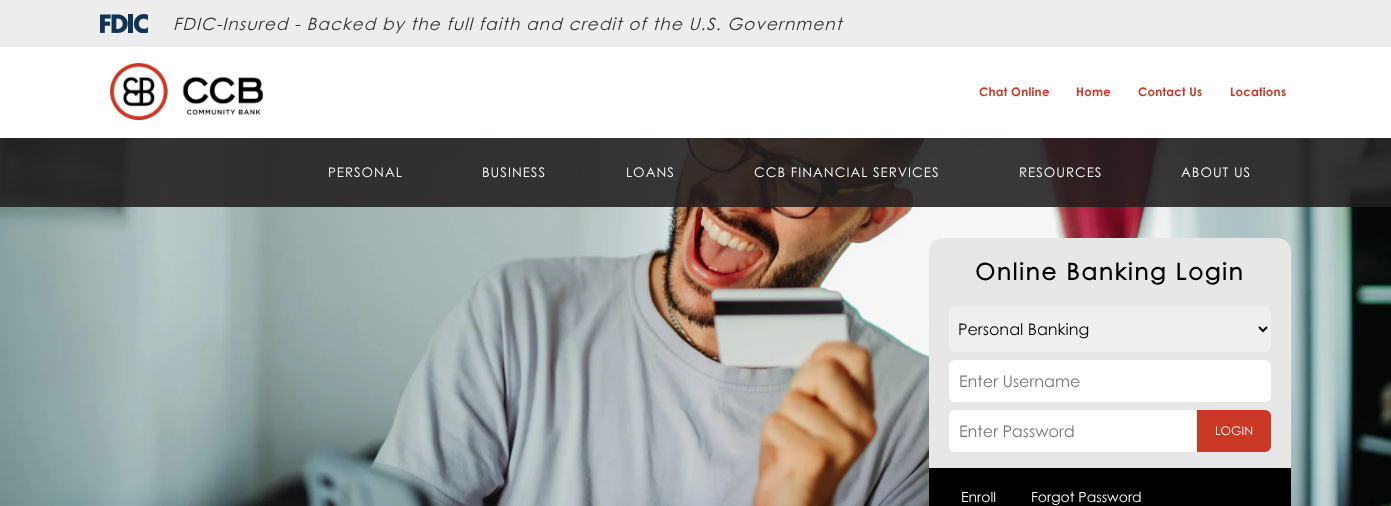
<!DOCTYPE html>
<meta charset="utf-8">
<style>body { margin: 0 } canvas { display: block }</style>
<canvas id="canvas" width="1391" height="506"></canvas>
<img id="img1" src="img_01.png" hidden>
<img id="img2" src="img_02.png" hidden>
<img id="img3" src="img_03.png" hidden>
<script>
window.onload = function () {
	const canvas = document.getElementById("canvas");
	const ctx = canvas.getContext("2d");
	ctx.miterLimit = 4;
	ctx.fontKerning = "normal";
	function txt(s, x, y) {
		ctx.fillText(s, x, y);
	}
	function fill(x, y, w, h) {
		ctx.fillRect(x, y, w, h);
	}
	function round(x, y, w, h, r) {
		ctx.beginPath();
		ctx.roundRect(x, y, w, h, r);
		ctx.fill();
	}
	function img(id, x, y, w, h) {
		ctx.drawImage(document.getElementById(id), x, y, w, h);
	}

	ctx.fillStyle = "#FFFFFF";
	fill(0, 0, 1391, 506);
	ctx.fillStyle = "#EDEDED";
	fill(0, 0, 1391, 47);
	img("img1", 100, 14, 48, 19);
	img("img2", 110, 63, 153, 58);
	img("img3", 0, 138, 1391, 368);
	ctx.fillStyle = "rgba(35, 31, 32, 0.89)";
	fill(0, 138, 1391, 69);
	ctx.fillStyle = "#E7E7E7";
	round(929, 238, 362, 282, 14);
	ctx.fillStyle = "#EFEFEF";
	round(949, 306, 322, 46, 6);
	ctx.beginPath();
	ctx.moveTo(1259, 327);
	ctx.lineTo(1263, 331);
	ctx.lineTo(1267, 327);
	ctx.strokeStyle = "#000000";
	ctx.lineWidth = 2;
	ctx.stroke();
	ctx.fillStyle = "#FFFFFF";
	round(949, 360, 322, 42, 6);
	ctx.beginPath();
	ctx.roundRect(949, 410, 248, 42, [6, 0, 0, 6]);
	ctx.fill();
	ctx.fillStyle = "#CB3825";
	ctx.beginPath();
	ctx.roundRect(1197, 410, 74, 42, [0, 6, 6, 0]);
	ctx.fill();
	ctx.fillStyle = "#000000";
	fill(929, 468, 362, 38);
	ctx.letterSpacing = "1.02px";
	ctx.font = "italic 17px Century Gothic";
	ctx.fillStyle = "#333333";
	txt("FDIC-Insured - Backed by the full faith and credit of the U.S. Government", 173, 30);
	ctx.letterSpacing = "0.25px";
	ctx.font = "bold 11.75px 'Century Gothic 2'";
	ctx.fillStyle = "#CB3825";
	txt("Chat Online", 979, 96);
	txt("Home", 1076, 96);
	txt("Contact Us", 1138, 96);
	txt("Locations", 1230, 96);
	ctx.letterSpacing = "1px";
	ctx.font = "13.25px Century Gothic";
	ctx.fillStyle = "#FFFFFF";
	txt("PERSONAL", 328, 177);
	txt("BUSINESS", 482, 177);
	txt("LOANS", 626, 177);
	txt("CCB FINANCIAL SERVICES", 754, 177);
	txt("RESOURCES", 1019, 177);
	txt("ABOUT US", 1181, 177);
	ctx.letterSpacing = "1.8px";
	ctx.font = "bold 23px Century Gothic";
	ctx.fillStyle = "#000000";
	txt("Online Banking Login", 975, 280);
	ctx.letterSpacing = "0px";
	ctx.font = "16px Century Gothic";
	txt("Personal Banking", 958, 335);
	ctx.fillStyle = "#757575";
	txt("Enter Username", 959, 387);
	txt("Enter Password", 959, 437);
	ctx.font = "12px Century Gothic";
	ctx.fillStyle = "#FFFFFF";
	txt("LOGIN", 1215, 435);
	ctx.font = "14px Century Gothic";
	txt("Enroll", 961, 502);
	txt("Forgot Password", 1031, 502);
};
</script>
